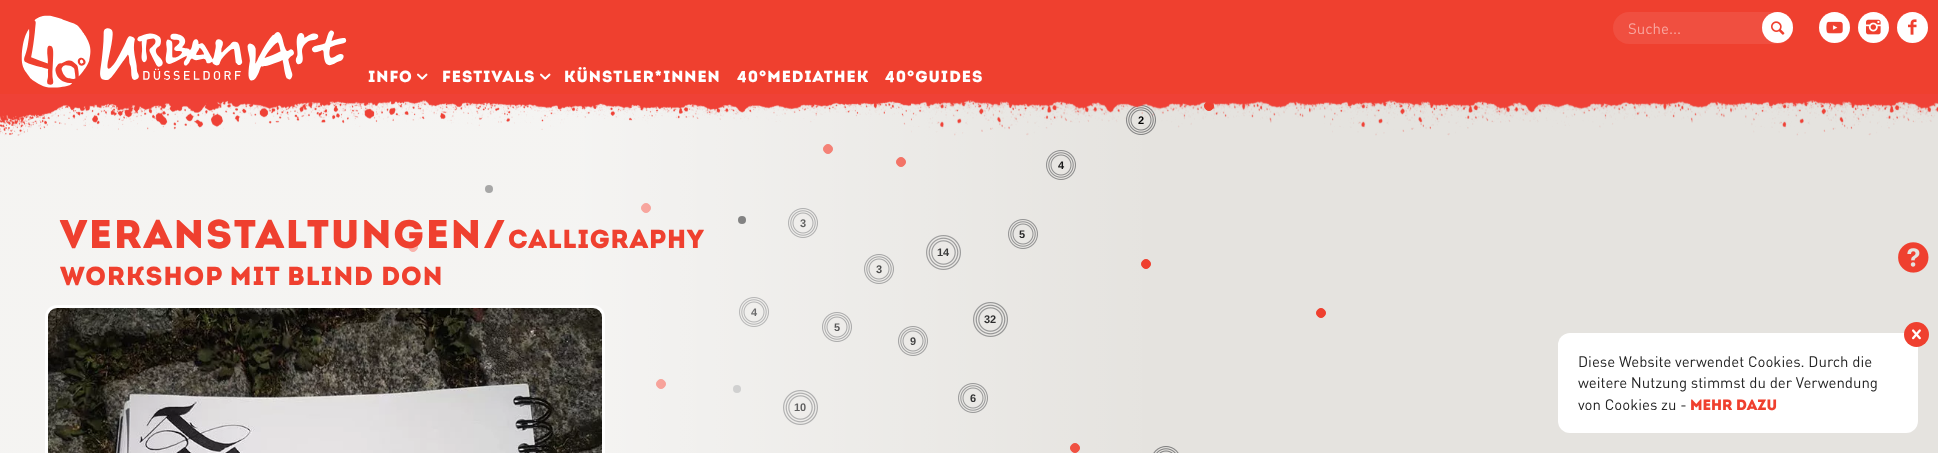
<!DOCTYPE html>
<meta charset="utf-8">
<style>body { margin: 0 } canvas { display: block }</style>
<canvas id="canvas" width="1938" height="453"></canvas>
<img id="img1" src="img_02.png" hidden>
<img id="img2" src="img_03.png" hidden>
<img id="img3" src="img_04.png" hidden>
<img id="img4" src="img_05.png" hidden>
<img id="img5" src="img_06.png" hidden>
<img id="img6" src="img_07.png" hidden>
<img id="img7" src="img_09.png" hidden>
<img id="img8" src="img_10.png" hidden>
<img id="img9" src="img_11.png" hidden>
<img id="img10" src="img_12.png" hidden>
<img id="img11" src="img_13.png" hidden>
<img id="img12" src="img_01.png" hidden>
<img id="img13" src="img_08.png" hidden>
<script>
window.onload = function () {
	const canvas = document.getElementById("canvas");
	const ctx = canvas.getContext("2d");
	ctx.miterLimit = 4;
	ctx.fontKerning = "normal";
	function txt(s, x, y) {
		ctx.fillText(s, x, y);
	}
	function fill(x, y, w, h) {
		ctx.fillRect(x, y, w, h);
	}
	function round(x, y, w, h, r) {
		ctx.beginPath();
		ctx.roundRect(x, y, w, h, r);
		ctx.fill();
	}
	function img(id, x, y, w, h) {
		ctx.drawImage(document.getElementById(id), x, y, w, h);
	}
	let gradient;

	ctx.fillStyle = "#E5E3DF";
	fill(0, 0, 1938, 453);
	ctx.fillStyle = "#EF402F";
	fill(0, 0, 1938, 94);
	img("img1", 21, 15, 326, 73);
	ctx.fillStyle = "#F04F40";
	round(1613, 12, 180, 32, 16);
	ctx.fillStyle = "#FFFFFF";
	ctx.beginPath();
	ctx.arc(1777.5, 27.5, 15.5, 0, Math.PI * 2);
	ctx.fill();
	img("img2", 1771, 21, 14, 14);
	ctx.beginPath();
	ctx.arc(1834.5, 27.5, 15.5, 0, Math.PI * 2);
	ctx.fill();
	img("img3", 1826, 21, 17, 13);
	ctx.beginPath();
	ctx.arc(1873.5, 27.5, 15.5, 0, Math.PI * 2);
	ctx.fill();
	img("img4", 1866, 19, 15, 16);
	ctx.beginPath();
	ctx.arc(1912.5, 27.5, 15.5, 0, Math.PI * 2);
	ctx.fill();
	img("img5", 1908, 19, 9, 16);
	img("img6", 417, 73, 11, 7);
	img("img6", 540, 73, 11, 7);
	ctx.fillStyle = "#EF402F";
	ctx.beginPath();
	ctx.arc(1209, 106, 4.5, 0, Math.PI * 2);
	ctx.fill();
	ctx.strokeStyle = "#EF402F";
	ctx.stroke();
	ctx.beginPath();
	ctx.arc(828, 149, 4.5, 0, Math.PI * 2);
	ctx.fill();
	ctx.stroke();
	ctx.beginPath();
	ctx.arc(901, 162, 4.5, 0, Math.PI * 2);
	ctx.fill();
	ctx.stroke();
	ctx.fillStyle = "#232323";
	ctx.beginPath();
	ctx.arc(489, 189, 4, 0, Math.PI * 2);
	ctx.fill();
	ctx.fillStyle = "#EF402F";
	ctx.beginPath();
	ctx.arc(646, 208, 4.5, 0, Math.PI * 2);
	ctx.fill();
	ctx.stroke();
	ctx.fillStyle = "#232323";
	ctx.beginPath();
	ctx.arc(742, 220, 4, 0, Math.PI * 2);
	ctx.fill();
	ctx.fillStyle = "#EF402F";
	ctx.beginPath();
	ctx.arc(413, 247, 4.5, 0, Math.PI * 2);
	ctx.fill();
	ctx.stroke();
	ctx.beginPath();
	ctx.arc(1146, 264, 4.5, 0, Math.PI * 2);
	ctx.fill();
	ctx.stroke();
	ctx.beginPath();
	ctx.arc(1321, 313, 4.5, 0, Math.PI * 2);
	ctx.fill();
	ctx.stroke();
	ctx.beginPath();
	ctx.arc(661, 384, 4.5, 0, Math.PI * 2);
	ctx.fill();
	ctx.stroke();
	ctx.fillStyle = "#ABABAB";
	ctx.beginPath();
	ctx.arc(737, 389, 4, 0, Math.PI * 2);
	ctx.fill();
	ctx.fillStyle = "#EF402F";
	ctx.beginPath();
	ctx.arc(1075, 448, 4.5, 0, Math.PI * 2);
	ctx.fill();
	ctx.stroke();
	img("img7", 1126, 105, 30, 30);
	img("img7", 1046, 150, 30, 30);
	img("img7", 788, 208, 30, 30);
	img("img7", 1008, 219, 30, 30);
	img("img8", 926, 235, 35, 35);
	img("img7", 864, 254, 30, 30);
	img("img7", 739, 297, 30, 30);
	img("img8", 973, 302, 35, 35);
	img("img7", 822, 312, 30, 30);
	img("img7", 898, 326, 30, 30);
	img("img7", 958, 383, 30, 30);
	img("img8", 783, 390, 35, 35);
	img("img9", 1153, 446, 26, 7);
	img("img10", 1898, 242, 31, 31);
	ctx.fillStyle = "#FFFFFF";
	round(1558, 333, 360, 100, 12);
	ctx.fillStyle = "#EF402F";
	ctx.beginPath();
	ctx.arc(1916.5, 334.5, 12.5, 0, Math.PI * 2);
	ctx.fill();
	img("img11", 1912, 329, 9, 11);
	ctx.font = "15px DIN";
	ctx.fillStyle = "#F8A7A0";
	txt("Suche...", 1628, 34);
	ctx.letterSpacing = "1px";
	ctx.font = "900 16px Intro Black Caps";
	ctx.fillStyle = "#FFFFFF";
	txt("Info", 368, 82);
	txt("Festivals", 442, 82);
	txt("Künstler*Innen", 564, 82);
	txt("40°Mediathek", 737, 82);
	txt("40°Guides", 885, 82);
	ctx.letterSpacing = "0px";
	ctx.font = "bold 11px Liberation Sans";
	ctx.fillStyle = "#000000";
	txt("2", 1138, 124);
	txt("4", 1058, 169);
	txt("3", 800, 227);
	txt("5", 1019, 238);
	txt("14", 937, 256);
	txt("3", 876, 273);
	txt("4", 751, 316);
	txt("32", 984, 323);
	txt("5", 834, 331);
	txt("9", 910, 345);
	txt("6", 970, 402);
	txt("10", 794, 411);
	gradient = ctx.createLinearGradient(0, 231, 1938, 231);
	gradient.addColorStop(0, "rgba(255, 255, 255, 0.6)");
	gradient.addColorStop(0.3, "rgba(255, 255, 255, 0.6)");
	gradient.addColorStop(0.6, "rgba(255, 255, 255, 0)");
	gradient.addColorStop(1, "rgba(255, 255, 255, 0)");
	ctx.fillStyle = gradient;
	fill(0, 100, 1142, 353);
	img("img12", 0, 94, 1938, 42);
	ctx.fillStyle = "rgba(255, 255, 255, 0.95)";
	ctx.beginPath();
	ctx.moveTo(57, 305);
	ctx.lineTo(593, 305);
	ctx.bezierCurveTo(599.5, 305, 605, 310.5, 605, 317);
	ctx.lineTo(605, 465);
	ctx.lineTo(45, 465);
	ctx.lineTo(45, 317);
	ctx.bezierCurveTo(45, 310.5, 50.5, 305, 57, 305);
	ctx.closePath();
	ctx.fill();
	img("img13", 48, 308, 554, 145);
	ctx.letterSpacing = "1px";
	ctx.font = "900 26px Intro Black Caps";
	ctx.fillStyle = "#EF402F";
	txt("Workshop mit Blind Don", 60, 285);
	txt("Calligraphy", 508, 248);
	ctx.letterSpacing = "2px";
	ctx.font = "900 40px Intro Black Caps";
	txt("Veranstaltungen/", 60, 248);
	ctx.letterSpacing = "0px";
	ctx.font = "15px DIN";
	ctx.fillStyle = "#232323";
	txt("Diese Website verwendet Cookies. Durch die", 1578, 367);
	txt("weitere Nutzung stimmst du der Verwendung", 1578, 388);
	txt("von Cookies zu -", 1578, 410);
	ctx.font = "900 15px Intro Black Caps";
	ctx.fillStyle = "#EF402F";
	txt("mehr dazu", 1690, 410);
};
</script>
